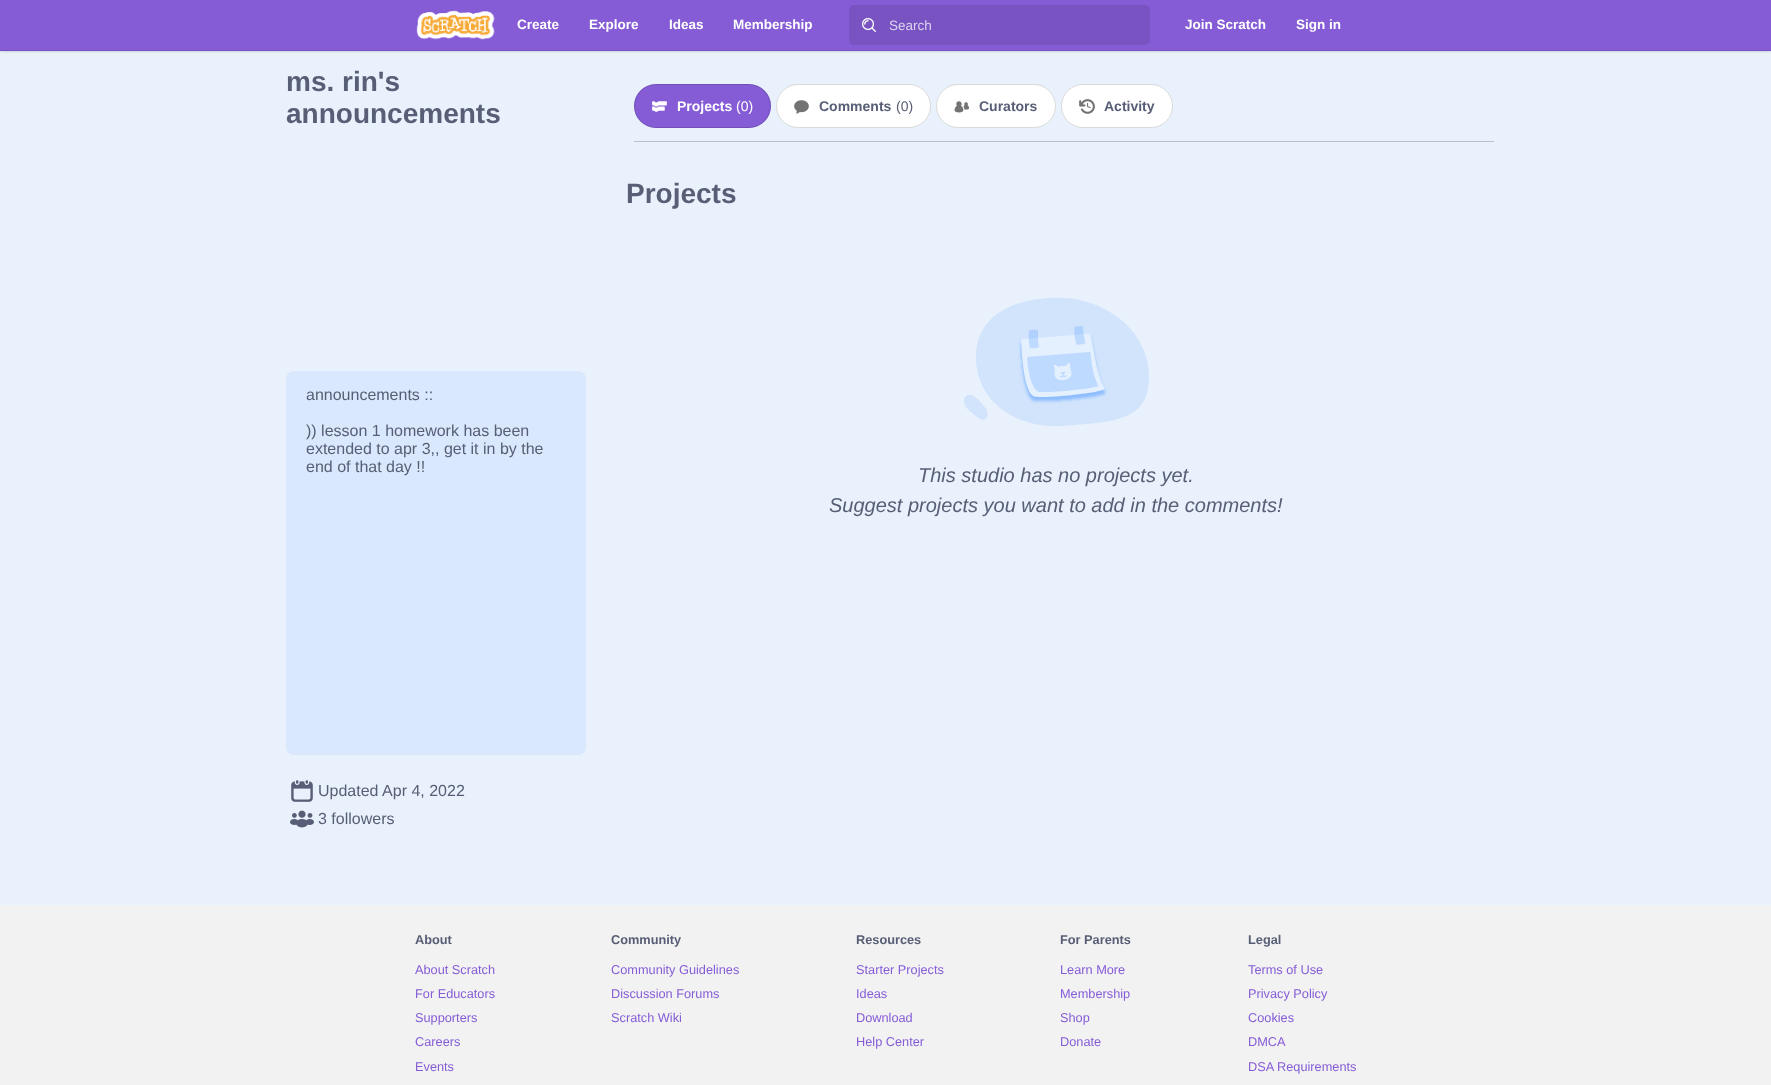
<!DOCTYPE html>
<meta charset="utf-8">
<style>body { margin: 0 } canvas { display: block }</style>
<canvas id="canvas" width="1771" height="1085"></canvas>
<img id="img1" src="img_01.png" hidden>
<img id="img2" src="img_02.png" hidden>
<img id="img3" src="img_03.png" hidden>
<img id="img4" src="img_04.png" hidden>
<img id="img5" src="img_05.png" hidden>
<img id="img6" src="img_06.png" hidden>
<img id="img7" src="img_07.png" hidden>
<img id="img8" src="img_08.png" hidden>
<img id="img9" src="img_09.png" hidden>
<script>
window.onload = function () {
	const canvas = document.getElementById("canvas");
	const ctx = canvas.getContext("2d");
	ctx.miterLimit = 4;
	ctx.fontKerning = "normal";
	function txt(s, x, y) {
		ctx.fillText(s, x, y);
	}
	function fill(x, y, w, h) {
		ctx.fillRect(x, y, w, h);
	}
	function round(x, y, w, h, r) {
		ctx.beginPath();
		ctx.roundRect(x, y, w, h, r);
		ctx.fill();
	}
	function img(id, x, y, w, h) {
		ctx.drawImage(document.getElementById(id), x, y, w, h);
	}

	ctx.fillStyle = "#E9F1FC";
	fill(0, 0, 1771, 1085);
	ctx.fillStyle = "rgba(0, 0, 0, 0.25)";
	ctx.filter = "blur(1.5px)";
	ctx.beginPath();
	ctx.rect(0, 0, 1771, 51);
	ctx.fill();
	ctx.filter = "none";
	ctx.fillStyle = "#855CD6";
	fill(0, 0, 1771, 50);
	ctx.fillStyle = "#7853C1";
	fill(0, 50, 1771, 1);
	img("img1", 416, 10, 79, 30);
	round(849, 5, 301, 40, 5);
	img("img2", 862, 18, 14, 14);
	ctx.fillStyle = "#D9E8FC";
	round(286, 371, 300, 384, 8);
	img("img3", 291, 780, 22, 22);
	img("img4", 290, 810, 24, 18);
	ctx.fillStyle = "#BAC1CA";
	fill(634, 141, 860, 1);
	ctx.fillStyle = "#855CD6";
	round(634, 84, 137, 44, 22);
	ctx.beginPath();
	ctx.roundRect(634.5, 84.5, 136, 43, 21.5);
	ctx.strokeStyle = "rgba(0, 0, 0, 0.15)";
	ctx.stroke();
	img("img5", 652, 101, 15, 11);
	ctx.fillStyle = "#FFFFFF";
	round(776, 84, 155, 44, 22);
	ctx.beginPath();
	ctx.roundRect(776.5, 84.5, 154, 43, 21.5);
	ctx.stroke();
	img("img6", 794, 100, 15, 14);
	round(936, 84, 120, 44, 22);
	ctx.beginPath();
	ctx.roundRect(936.5, 84.5, 119, 43, 21.5);
	ctx.stroke();
	img("img7", 954, 101, 15, 12);
	round(1061, 84, 112, 44, 22);
	ctx.beginPath();
	ctx.roundRect(1061.5, 84.5, 111, 43, 21.5);
	ctx.stroke();
	img("img8", 1079, 99, 16, 15);
	img("img9", 964, 297, 185, 130);
	ctx.fillStyle = "#F2F2F2";
	fill(0, 905, 1771, 180);
	ctx.font = "bold 13.5px Liberation Sans";
	ctx.fillStyle = "#FFFFFF";
	txt("Create", 517, 29);
	txt("Explore", 589, 29);
	txt("Ideas", 669, 29);
	txt("Membership", 733, 29);
	ctx.font = "13.5px Liberation Sans";
	ctx.fillStyle = "#DDD4F0";
	txt("Search", 889, 30);
	ctx.font = "bold 13.5px Liberation Sans";
	ctx.fillStyle = "#FFFFFF";
	txt("Join Scratch", 1185, 29);
	txt("Sign in", 1296, 29);
	ctx.font = "bold 28px Liberation Sans";
	ctx.fillStyle = "#575E75";
	txt("ms. rin's", 286, 91);
	txt("announcements", 286, 123);
	ctx.font = "16px Liberation Sans";
	txt("announcements ::", 306, 400);
	txt(")) lesson 1 homework has been", 306, 436);
	txt("extended to apr 3,, get it in by the", 306, 454);
	txt("end of that day !!", 306, 472);
	txt("Updated Apr 4, 2022", 318, 796);
	txt("3 followers", 318, 824);
	ctx.font = "bold 14px Liberation Sans";
	ctx.fillStyle = "#FFFFFF";
	txt("Projects", 677, 111);
	ctx.font = "14px Liberation Sans";
	txt("(0)", 736, 111);
	ctx.font = "bold 14px Liberation Sans";
	ctx.fillStyle = "#575E75";
	txt("Comments", 819, 111);
	ctx.font = "14px Liberation Sans";
	txt("(0)", 896, 111);
	ctx.font = "bold 14px Liberation Sans";
	txt("Curators", 979, 111);
	txt("Activity", 1104, 111);
	ctx.font = "bold 28px Liberation Sans";
	txt("Projects", 626, 203);
	ctx.font = "italic 20px Liberation Sans";
	txt("This studio has no projects yet.", 918, 482);
	txt("Suggest projects you want to add in the comments!", 829, 512);
	ctx.font = "bold 12.75px Liberation Sans";
	txt("About", 415, 944);
	ctx.font = "12.75px Liberation Sans";
	ctx.fillStyle = "#855CD6";
	txt("About Scratch", 415, 974);
	txt("For Educators", 415, 998);
	txt("Supporters", 415, 1022);
	txt("Careers", 415, 1046);
	txt("Events", 415, 1071);
	ctx.font = "bold 12.75px Liberation Sans";
	ctx.fillStyle = "#575E75";
	txt("Community", 611, 944);
	ctx.font = "12.75px Liberation Sans";
	ctx.fillStyle = "#855CD6";
	txt("Community Guidelines", 611, 974);
	txt("Discussion Forums", 611, 998);
	txt("Scratch Wiki", 611, 1022);
	ctx.font = "bold 12.75px Liberation Sans";
	ctx.fillStyle = "#575E75";
	txt("Resources", 856, 944);
	ctx.font = "12.75px Liberation Sans";
	ctx.fillStyle = "#855CD6";
	txt("Starter Projects", 856, 974);
	txt("Ideas", 856, 998);
	txt("Download", 856, 1022);
	txt("Help Center", 856, 1046);
	ctx.font = "bold 12.75px Liberation Sans";
	ctx.fillStyle = "#575E75";
	txt("For Parents", 1060, 944);
	ctx.font = "12.75px Liberation Sans";
	ctx.fillStyle = "#855CD6";
	txt("Learn More", 1060, 974);
	txt("Membership", 1060, 998);
	txt("Shop", 1060, 1022);
	txt("Donate", 1060, 1046);
	ctx.font = "bold 12.75px Liberation Sans";
	ctx.fillStyle = "#575E75";
	txt("Legal", 1248, 944);
	ctx.font = "12.75px Liberation Sans";
	ctx.fillStyle = "#855CD6";
	txt("Terms of Use", 1248, 974);
	txt("Privacy Policy", 1248, 998);
	txt("Cookies", 1248, 1022);
	txt("DMCA", 1248, 1046);
	txt("DSA Requirements", 1248, 1071);
};
</script>
